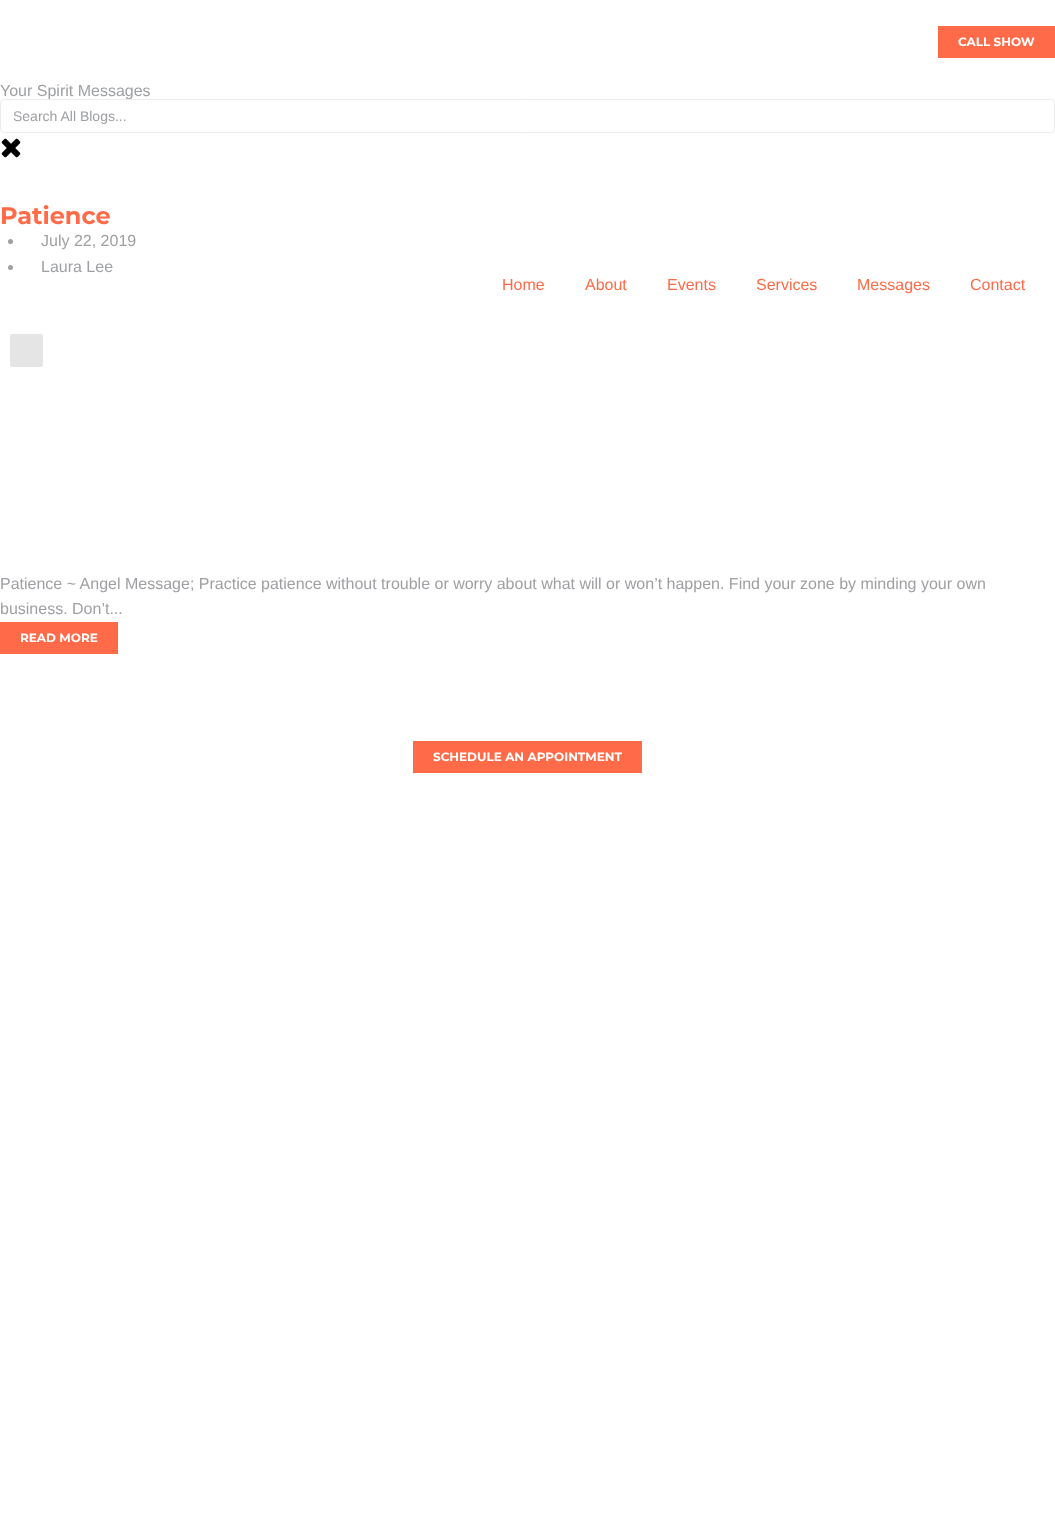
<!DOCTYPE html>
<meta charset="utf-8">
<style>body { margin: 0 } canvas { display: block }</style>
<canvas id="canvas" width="1055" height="1529"></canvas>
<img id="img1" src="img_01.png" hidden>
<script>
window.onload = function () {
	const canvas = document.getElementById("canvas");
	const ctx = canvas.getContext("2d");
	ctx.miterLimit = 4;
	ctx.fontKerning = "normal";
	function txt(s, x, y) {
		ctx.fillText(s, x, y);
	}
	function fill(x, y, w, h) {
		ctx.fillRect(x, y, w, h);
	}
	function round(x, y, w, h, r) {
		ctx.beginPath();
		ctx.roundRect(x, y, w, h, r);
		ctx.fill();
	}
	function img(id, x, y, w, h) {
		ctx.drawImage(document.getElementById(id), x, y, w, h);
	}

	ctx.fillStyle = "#FFFFFF";
	fill(0, 0, 1055, 1529);
	ctx.fillStyle = "#FF6A48";
	fill(938, 26, 117, 32);
	img("img1", 1, 138, 20, 20);
	ctx.fillStyle = "#9FA0A3";
	ctx.beginPath();
	ctx.arc(10.5, 241.5, 2.5, 0, Math.PI * 2);
	ctx.fill();
	ctx.beginPath();
	ctx.arc(10.5, 267.5, 2.5, 0, Math.PI * 2);
	ctx.fill();
	ctx.fillStyle = "#FF6A48";
	fill(0, 622, 118, 32);
	fill(413, 741, 229, 32);
	ctx.fillStyle = "#F2F2F2";
	round(10, 334, 33, 33, 3);
	ctx.fillStyle = "rgba(0, 0, 0, 0.05)";
	fill(10, 334, 33, 33);
	ctx.font = "100 12px Montserrat";
	ctx.fillStyle = "#FFFFFF";
	txt("CALL SHOW", 958, 46);
	ctx.font = "16px Liberation Sans";
	ctx.fillStyle = "#9FA0A3";
	txt("Your Spirit Messages", 0, 96);
	ctx.fillStyle = "#FFFFFF";
	ctx.beginPath();
	ctx.roundRect(0.5, 99.5, 1054, 33, 3.5);
	ctx.fill();
	ctx.strokeStyle = "#EBECED";
	ctx.stroke();
	ctx.font = "14px Liberation Sans";
	ctx.fillStyle = "#9FA0A3";
	txt("Search All Blogs...", 13, 121);
	ctx.font = "100 24px Montserrat";
	ctx.fillStyle = "#FF6A48";
	txt("Patience", 0, 224);
	ctx.font = "16px Liberation Sans";
	ctx.fillStyle = "#9FA0A3";
	txt("July 22, 2019", 41, 246);
	txt("Laura Lee", 41, 272);
	txt("Patience ~ Angel Message; Practice patience without trouble or worry about what will or won’t happen. Find your zone by minding your own", 0, 589);
	txt("business. Don’t...", 0, 614);
	ctx.font = "100 12px Montserrat";
	ctx.fillStyle = "#FFFFFF";
	txt("READ MORE", 20, 642);
	txt("SCHEDULE AN APPOINTMENT", 433, 761);
	ctx.font = "16px Liberation Sans";
	ctx.fillStyle = "#FF6A48";
	txt("Home", 502, 290);
	txt("About", 585, 290);
	txt("Events", 667, 290);
	txt("Services", 756, 290);
	txt("Messages", 857, 290);
	txt("Contact", 970, 290);
};
</script>
